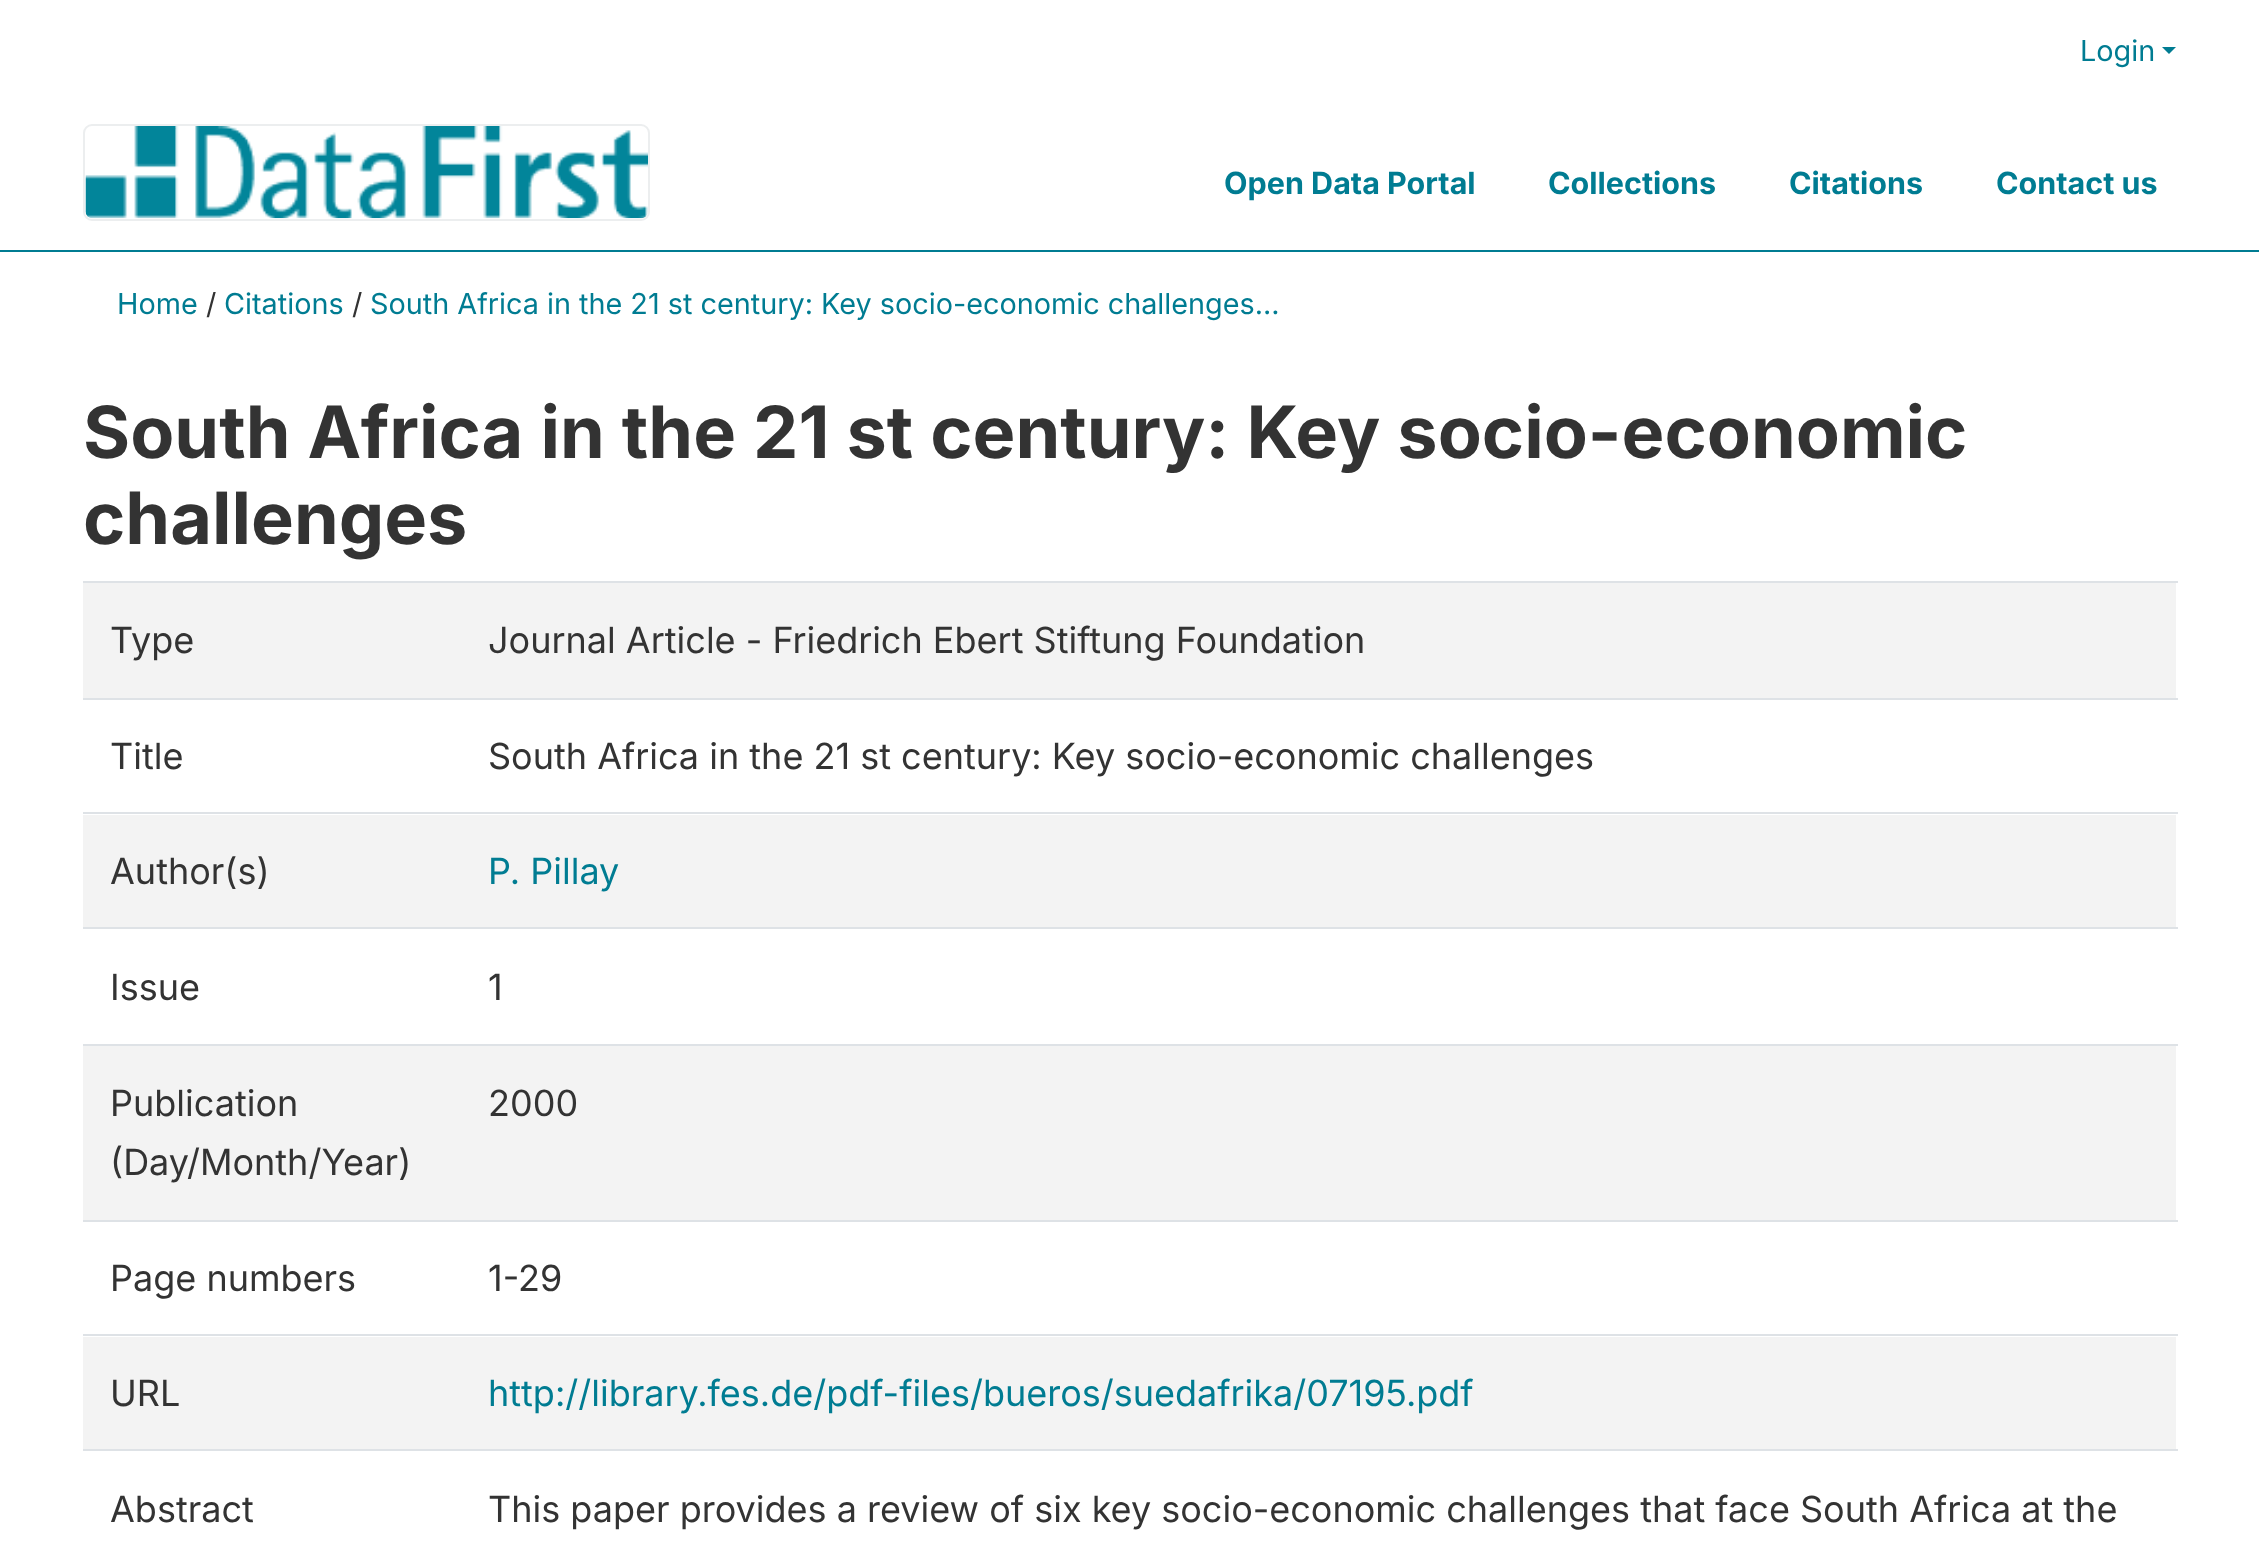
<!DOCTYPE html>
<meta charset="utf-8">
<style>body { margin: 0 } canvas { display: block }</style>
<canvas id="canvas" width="2259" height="1547"></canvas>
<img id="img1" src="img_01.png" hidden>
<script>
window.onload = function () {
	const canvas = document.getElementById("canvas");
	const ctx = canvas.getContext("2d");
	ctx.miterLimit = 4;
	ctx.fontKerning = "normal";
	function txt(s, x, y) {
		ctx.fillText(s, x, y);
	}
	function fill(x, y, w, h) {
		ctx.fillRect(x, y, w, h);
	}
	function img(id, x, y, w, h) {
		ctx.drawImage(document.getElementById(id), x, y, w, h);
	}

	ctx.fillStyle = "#FFFFFF";
	fill(0, 0, 2259, 1547);
	ctx.fillStyle = "#007C92";
	fill(0, 250, 2259, 2);
	ctx.beginPath();
	ctx.moveTo(2162, 47);
	ctx.lineTo(2176, 47);
	ctx.lineTo(2169, 54);
	ctx.closePath();
	ctx.fill();
	ctx.beginPath();
	ctx.roundRect(84, 125, 565, 95, 8);
	ctx.strokeStyle = "#ECEEEF";
	ctx.lineWidth = 2;
	ctx.stroke();
	img("img1", 85, 126, 563, 93);
	ctx.fillStyle = "#F3F3F3";
	fill(83, 583, 2093, 115);
	ctx.fillStyle = "#DEE2E6";
	fill(83, 581, 2095, 2);
	fill(83, 698, 2095, 2);
	ctx.fillStyle = "#F3F3F3";
	fill(83, 815, 2093, 112);
	ctx.fillStyle = "#DEE2E6";
	fill(83, 812, 2095, 2);
	fill(83, 927, 2095, 2);
	ctx.fillStyle = "#F3F3F3";
	fill(83, 1046, 2093, 174);
	ctx.fillStyle = "#DEE2E6";
	fill(83, 1044, 2095, 2);
	fill(83, 1220, 2095, 2);
	ctx.fillStyle = "#F3F3F3";
	fill(83, 1337, 2093, 112);
	ctx.fillStyle = "#DEE2E6";
	fill(83, 1334, 2095, 2);
	fill(83, 1449, 2095, 2);
	ctx.font = "28.8px Inter";
	ctx.fillStyle = "#007C92";
	txt("Login", 2080, 61);
	ctx.font = "bold 30.5px Inter";
	txt("Open Data Portal", 1224, 194);
	txt("Collections", 1548, 194);
	txt("Citations", 1789, 194);
	txt("Contact us", 1996, 194);
	ctx.font = "28.8px Inter";
	txt("Home", 117, 314);
	ctx.fillStyle = "#333333";
	txt("/", 206, 314);
	ctx.fillStyle = "#007C92";
	txt("Citations", 224, 314);
	ctx.fillStyle = "#333333";
	txt("/", 352, 314);
	ctx.fillStyle = "#007C92";
	txt("South Africa in the 21 st century: Key socio-economic challenges...", 370, 314);
	ctx.font = "bold 72px Inter";
	ctx.fillStyle = "#333333";
	txt("South Africa in the 21 st century: Key socio-economic", 83, 458);
	txt("challenges", 83, 544);
	ctx.font = "36px Inter";
	txt("Type", 110, 653);
	txt("Journal Article - Friedrich Ebert Stiftung Foundation", 488, 653);
	txt("Title", 110, 769);
	txt("South Africa in the 21 st century: Key socio-economic challenges", 488, 769);
	txt("Author(s)", 110, 884);
	ctx.fillStyle = "#007C92";
	txt("P. Pillay", 488, 884);
	ctx.fillStyle = "#333333";
	txt("Issue", 110, 1000);
	txt("1", 488, 1000);
	txt("Publication", 110, 1116);
	txt("(Day/Month/Year)", 110, 1175);
	txt("2000", 488, 1116);
	txt("Page numbers", 110, 1291);
	txt("1-29", 488, 1291);
	txt("URL", 110, 1406);
	ctx.fillStyle = "#007C92";
	txt("http://library.fes.de/pdf-files/bueros/suedafrika/07195.pdf", 488, 1406);
	ctx.fillStyle = "#333333";
	txt("Abstract", 110, 1522);
	txt("This paper provides a review of six key socio-economic challenges that face South Africa at the", 488, 1522);
};
</script>
